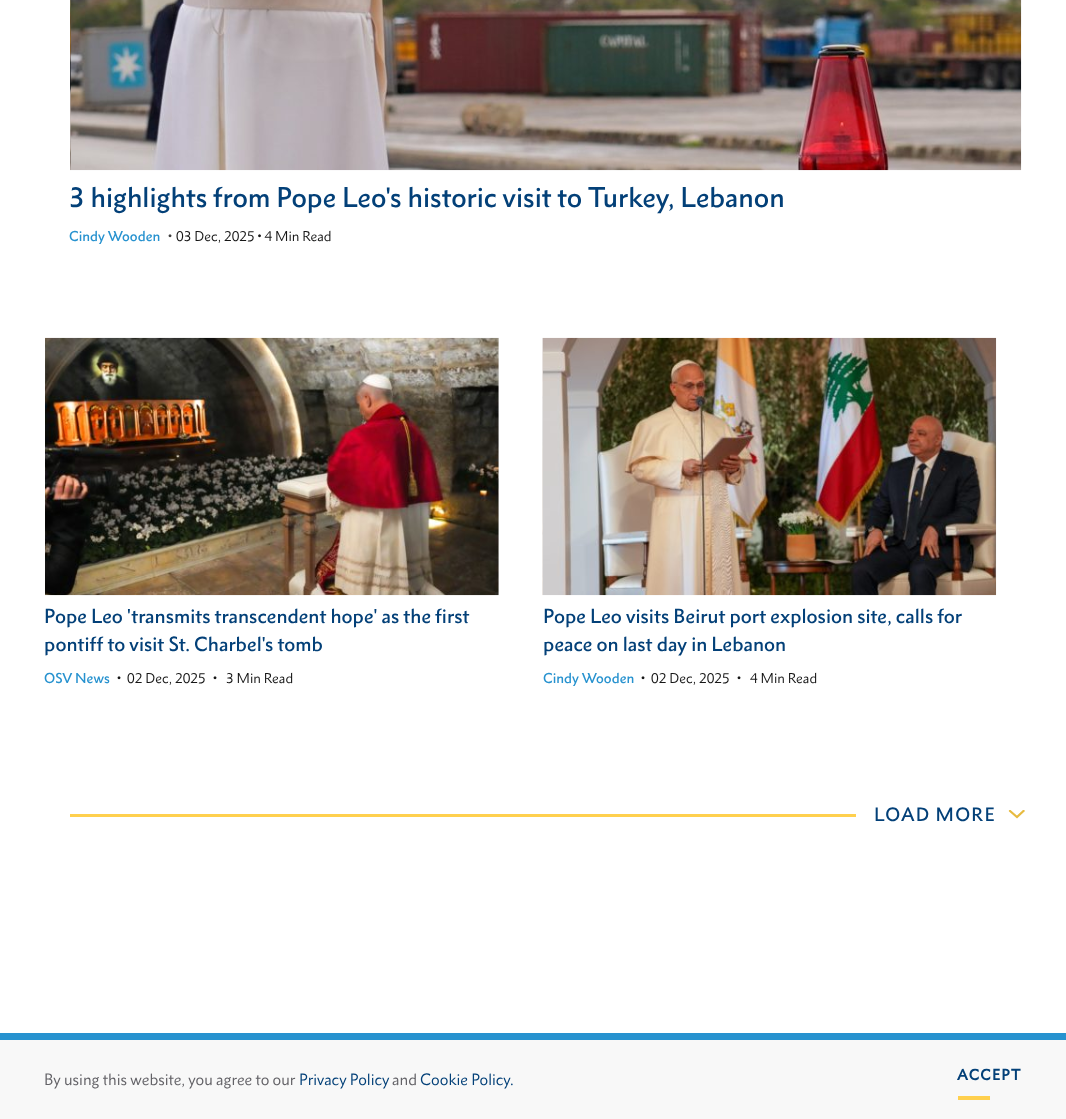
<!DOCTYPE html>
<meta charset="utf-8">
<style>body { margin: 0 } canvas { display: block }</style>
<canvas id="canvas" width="1066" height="1119"></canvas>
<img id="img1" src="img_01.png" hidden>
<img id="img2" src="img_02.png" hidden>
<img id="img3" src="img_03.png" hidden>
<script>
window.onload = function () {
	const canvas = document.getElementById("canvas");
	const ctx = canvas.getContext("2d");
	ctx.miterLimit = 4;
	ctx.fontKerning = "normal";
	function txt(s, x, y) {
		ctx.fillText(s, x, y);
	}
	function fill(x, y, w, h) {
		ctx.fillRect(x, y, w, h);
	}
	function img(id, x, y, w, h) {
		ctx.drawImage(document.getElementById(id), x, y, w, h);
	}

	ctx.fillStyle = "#FFFFFF";
	fill(0, 0, 1066, 1119);
	img("img1", 70, 0, 952, 171);
	img("img2", 45, 337, 454, 259);
	img("img3", 542, 337, 455, 259);
	ctx.fillStyle = "#FFD04E";
	fill(70, 814, 786, 3);
	ctx.save();
	ctx.beginPath();
	ctx.moveTo(1026, 810);
	ctx.lineTo(1026, 819);
	ctx.lineTo(1008.5, 819);
	ctx.lineTo(1008.5, 810);
	ctx.closePath();
	ctx.clip();
	ctx.beginPath();
	ctx.moveTo(1023.5, 811);
	ctx.lineTo(1017, 817);
	ctx.lineTo(1010, 811);
	ctx.strokeStyle = "#E7BB41";
	ctx.lineWidth = 2.2;
	ctx.lineCap = "square";
	ctx.stroke();
	ctx.restore();
	ctx.fillStyle = "#2792CF";
	fill(0, 1033, 1066, 7);
	ctx.fillStyle = "#F8F8F8";
	fill(0, 1040, 1066, 79);
	ctx.fillStyle = "#FFD04E";
	fill(958, 1096, 32, 4);
	ctx.font = "500 26px 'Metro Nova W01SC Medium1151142'";
	ctx.fillStyle = "#034078";
	txt("3 highlights from Pope Leo's historic visit to Turkey, Lebanon", 69, 207);
	ctx.font = "500 13.1px 'Metro Nova W01SC Medium1151142'";
	ctx.fillStyle = "#2792CF";
	txt("Cindy Wooden", 69, 241);
	ctx.font = "13.1px 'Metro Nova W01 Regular'";
	ctx.fillStyle = "#404040";
	txt("•", 168, 241);
	ctx.fillStyle = "#161616";
	txt("03 Dec, 2025 • 4 Min Read", 176, 241);
	ctx.font = "500 18.6px 'Metro Nova W01SC Medium1151142'";
	ctx.fillStyle = "#034078";
	txt("Pope Leo 'transmits transcendent hope' as the first", 44, 623);
	txt("pontiff to visit St. Charbel's tomb", 44, 651);
	ctx.font = "500 13.1px 'Metro Nova W01SC Medium1151142'";
	ctx.fillStyle = "#2792CF";
	txt("OSV News", 44, 683);
	ctx.font = "13.1px 'Metro Nova W01 Regular'";
	ctx.fillStyle = "#161616";
	txt("•", 117, 683);
	txt("02 Dec, 2025", 127, 683);
	txt("•", 213, 683);
	txt("3 Min Read", 226, 683);
	ctx.font = "500 18.6px 'Metro Nova W01SC Medium1151142'";
	ctx.fillStyle = "#034078";
	txt("Pope Leo visits Beirut port explosion site, calls for", 543, 623);
	txt("peace on last day in Lebanon", 543, 651);
	ctx.font = "500 13.1px 'Metro Nova W01SC Medium1151142'";
	ctx.fillStyle = "#2792CF";
	txt("Cindy Wooden", 543, 683);
	ctx.font = "13.1px 'Metro Nova W01 Regular'";
	ctx.fillStyle = "#161616";
	txt("•", 641, 683);
	txt("02 Dec, 2025", 651, 683);
	txt("•", 737, 683);
	txt("4 Min Read", 750, 683);
	ctx.letterSpacing = "1.25px";
	ctx.font = "500 17.5px 'Metro Nova W01SC Medium1151142'";
	ctx.fillStyle = "#034078";
	txt("LOAD MORE", 874, 821);
	ctx.letterSpacing = "0px";
	ctx.font = "14.9px 'Metro Nova W01 Regular'";
	ctx.fillStyle = "#636267";
	txt("By using this website, you agree to our", 44, 1085);
	ctx.fillStyle = "#034078";
	txt("Privacy Policy", 299, 1085);
	ctx.fillStyle = "#636267";
	txt("and", 392, 1085);
	ctx.fillStyle = "#034078";
	txt("Cookie Policy.", 420, 1085);
	ctx.letterSpacing = "1.25px";
	ctx.font = "bold 14px 'Metro Nova W01SC Medium1151142'";
	txt("ACCEPT", 957, 1080);
};
</script>
